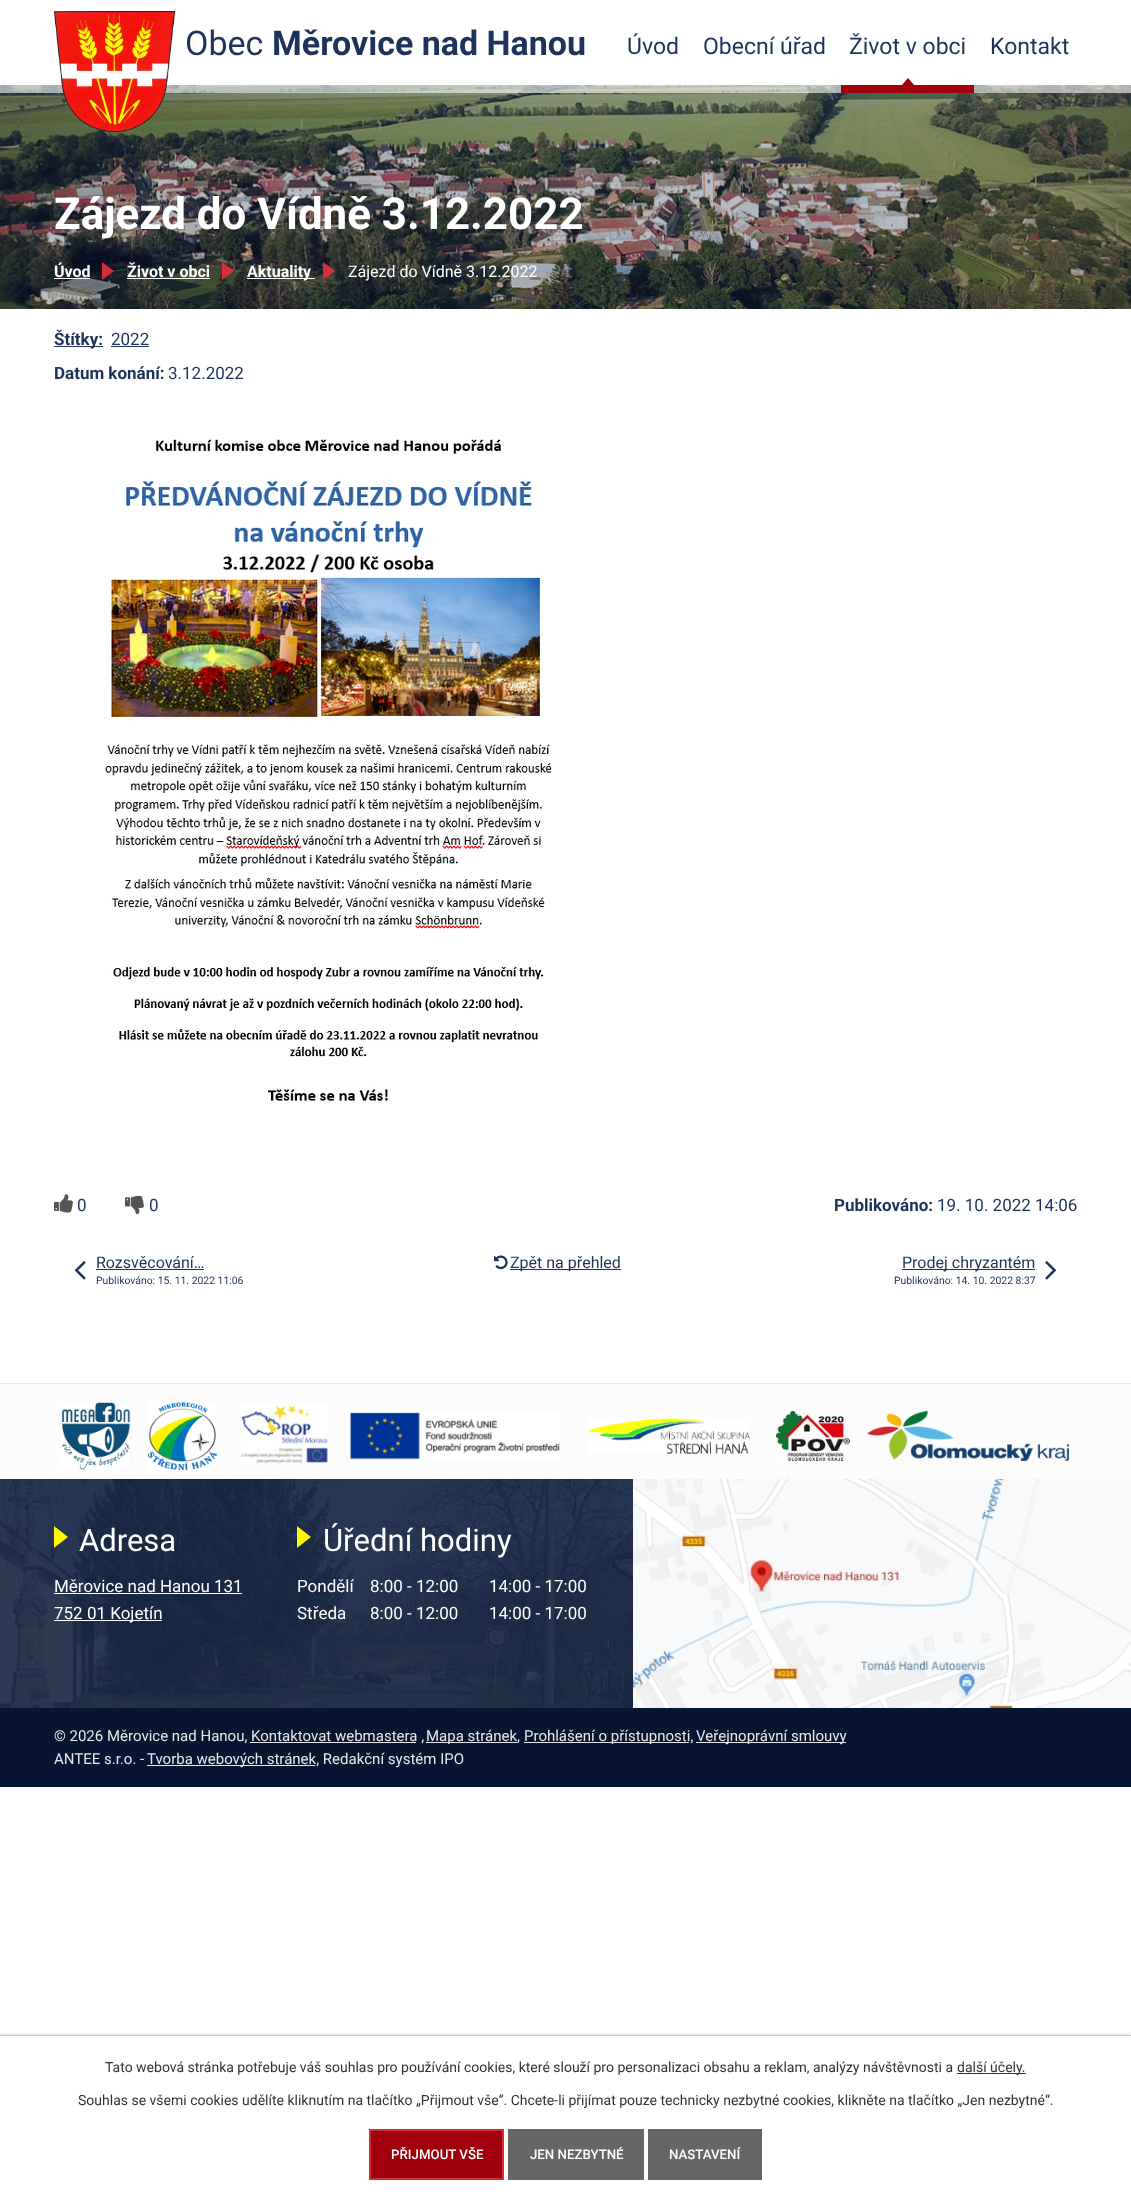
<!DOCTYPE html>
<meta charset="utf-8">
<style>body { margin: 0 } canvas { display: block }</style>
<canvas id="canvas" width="1131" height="2198"></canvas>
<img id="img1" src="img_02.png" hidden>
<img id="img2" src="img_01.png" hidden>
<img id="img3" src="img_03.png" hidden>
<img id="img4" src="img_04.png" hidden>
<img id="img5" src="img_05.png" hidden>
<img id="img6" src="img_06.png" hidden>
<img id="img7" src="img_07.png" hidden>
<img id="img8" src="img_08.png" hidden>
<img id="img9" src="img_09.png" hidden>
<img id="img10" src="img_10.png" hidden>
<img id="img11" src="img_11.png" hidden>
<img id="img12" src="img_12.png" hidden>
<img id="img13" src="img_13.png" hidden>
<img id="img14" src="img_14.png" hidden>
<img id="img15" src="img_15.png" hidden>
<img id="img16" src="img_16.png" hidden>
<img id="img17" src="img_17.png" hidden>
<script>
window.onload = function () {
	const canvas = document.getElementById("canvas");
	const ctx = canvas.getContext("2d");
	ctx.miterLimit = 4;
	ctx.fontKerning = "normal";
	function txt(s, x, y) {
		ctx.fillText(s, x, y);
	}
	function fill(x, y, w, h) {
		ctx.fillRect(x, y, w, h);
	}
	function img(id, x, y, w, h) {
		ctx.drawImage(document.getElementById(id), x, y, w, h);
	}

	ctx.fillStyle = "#FFFFFF";
	fill(0, 0, 1131, 2198);
	img("img1", 0, 85, 1131, 224);
	ctx.fillStyle = "rgba(255, 255, 255, 0.59)";
	fill(0, 85, 1131, 8);
	img("img2", 54, 11, 121, 121);
	ctx.fillStyle = "#9F000B";
	ctx.beginPath();
	ctx.moveTo(914, 85);
	ctx.lineTo(902, 85);
	ctx.lineTo(908, 78);
	ctx.closePath();
	ctx.fill();
	fill(841, 85, 133, 8);
	ctx.fillStyle = "#FFFFFF";
	fill(54, 278, 36, 1);
	ctx.fillStyle = "#D52E39";
	ctx.beginPath();
	ctx.moveTo(102, 280);
	ctx.lineTo(102, 262);
	ctx.lineTo(114, 271);
	ctx.closePath();
	ctx.fill();
	ctx.fillStyle = "#FFFFFF";
	fill(127, 278, 83, 1);
	ctx.fillStyle = "#D52E39";
	ctx.beginPath();
	ctx.moveTo(222, 280);
	ctx.lineTo(222, 262);
	ctx.lineTo(234, 271);
	ctx.closePath();
	ctx.fill();
	ctx.fillStyle = "#FFFFFF";
	fill(247, 278, 68, 1);
	ctx.fillStyle = "#D52E39";
	ctx.beginPath();
	ctx.moveTo(323, 280);
	ctx.lineTo(323, 262);
	ctx.lineTo(335, 271);
	ctx.closePath();
	ctx.fill();
	ctx.fillStyle = "#1D335C";
	fill(54, 346, 49, 1);
	fill(111, 346, 38, 1);
	img("img3", 105, 439, 447, 664);
	img("img4", 54, 1194, 19, 19);
	img("img5", 125, 1195, 19, 19);
	img("img6", 74, 1261, 12, 19);
	fill(96, 1269, 108, 1);
	img("img7", 494, 1255, 14, 15);
	fill(510, 1269, 111, 1);
	fill(902, 1269, 133, 1);
	img("img8", 1045, 1261, 11, 19);
	ctx.fillStyle = "#FCFCFC";
	fill(0, 1384, 1131, 95);
	ctx.fillStyle = "#EBEBEB";
	fill(0, 1383, 1131, 1);
	img("img9", 62, 1402, 69, 68);
	img("img10", 148, 1402, 69, 68);
	img("img11", 241, 1405, 87, 59);
	img("img12", 350, 1412, 210, 48);
	img("img13", 588, 1418, 162, 36);
	img("img14", 776, 1411, 74, 50);
	img("img15", 867, 1411, 202, 50);
	img("img16", 0, 1479, 633, 229);
	ctx.fillStyle = "#FEF903";
	ctx.beginPath();
	ctx.moveTo(54, 1548);
	ctx.lineTo(54, 1526);
	ctx.lineTo(68, 1537);
	ctx.closePath();
	ctx.fill();
	ctx.fillStyle = "#FFFFFF";
	fill(54, 1593, 188, 1);
	fill(54, 1620, 108, 1);
	ctx.fillStyle = "#FEF903";
	ctx.beginPath();
	ctx.moveTo(297, 1548);
	ctx.lineTo(297, 1526);
	ctx.lineTo(311, 1537);
	ctx.closePath();
	ctx.fill();
	img("img17", 633, 1479, 498, 229);
	ctx.fillStyle = "#071530";
	fill(0, 1708, 1131, 79);
	ctx.fillStyle = "#E6E8EA";
	fill(426, 1742, 91, 1);
	fill(524, 1742, 165, 1);
	fill(696, 1742, 150, 1);
	fill(250, 1742, 166, 1);
	fill(147, 1765, 168, 1);
	ctx.save();
	ctx.beginPath();
	ctx.rect(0, 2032, 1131, 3);
	ctx.clip();
	ctx.fillStyle = "rgba(0, 0, 0, 0.2)";
	ctx.filter = "blur(2.5px)";
	ctx.beginPath();
	ctx.rect(0, 2035, 1131, 163);
	ctx.fill();
	ctx.filter = "none";
	ctx.restore();
	ctx.fillStyle = "#CCCCCC";
	fill(0, 2035, 1131, 1);
	ctx.fillStyle = "#333333";
	fill(957, 2073, 69, 1);
	ctx.fillStyle = "#9F000B";
	ctx.beginPath();
	ctx.rect(370, 2130, 133, 49);
	ctx.fill();
	ctx.strokeStyle = "#D52E39";
	ctx.lineWidth = 2;
	ctx.stroke();
	ctx.fillStyle = "#666666";
	fill(508, 2129, 136, 51);
	fill(648, 2129, 114, 51);
	ctx.font = "34px Roboto";
	ctx.fillStyle = "#1D335C";
	txt("Obec", 185, 55);
	ctx.font = "bold 34px Roboto";
	txt("Měrovice nad Hanou", 272, 55);
	ctx.font = "23px Roboto";
	txt("Úvod", 627, 54);
	txt("Obecní úřad", 703, 54);
	txt("Život v obci", 849, 54);
	txt("Kontakt", 990, 54);
	ctx.font = "bold 43.9px Roboto";
	ctx.fillStyle = "#FFFFFF";
	txt("Zájezd do Vídně 3.12.2022", 54, 229);
	ctx.font = "bold 16px Roboto";
	txt("Úvod", 54, 277);
	txt("Život v obci", 127, 277);
	txt("Aktuality", 247, 277);
	ctx.font = "16px Roboto";
	txt("Zájezd do Vídně 3.12.2022", 348, 277);
	ctx.font = "bold 17px Roboto";
	ctx.fillStyle = "#1D335C";
	txt("Štítky:", 54, 345);
	ctx.font = "17px Roboto";
	txt("2022", 111, 345);
	ctx.font = "bold 17px Roboto";
	txt("Datum konání:", 54, 379);
	ctx.font = "17px Roboto";
	txt("3.12.2022", 168, 379);
	txt("0", 77, 1211);
	txt("0", 149, 1211);
	ctx.font = "bold 17px Roboto";
	txt("Publikováno:", 834, 1211);
	ctx.font = "17px Roboto";
	txt("19. 10. 2022 14:06", 937, 1211);
	ctx.font = "16px Roboto";
	txt("Rozsvěcování…", 96, 1268);
	ctx.font = "10.4px Roboto";
	txt("Publikováno: 15. 11. 2022 11:06", 96, 1284);
	ctx.font = "16px Roboto";
	txt("Zpět na přehled", 510, 1268);
	txt("Prodej chryzantém", 902, 1268);
	ctx.font = "10.4px Roboto";
	txt("Publikováno: 14. 10. 2022 8:37", 894, 1284);
	ctx.font = "31px Roboto";
	ctx.fillStyle = "#FFFFFF";
	txt("Adresa", 79, 1551);
	ctx.font = "17px Roboto";
	txt("Měrovice nad Hanou 131", 54, 1592);
	txt("752 01 Kojetín", 54, 1619);
	ctx.font = "31px Roboto";
	txt("Úřední hodiny", 323, 1551);
	ctx.font = "17px Roboto";
	txt("Pondělí", 297, 1592);
	txt("8:00 - 12:00", 370, 1592);
	txt("14:00 - 17:00", 489, 1592);
	txt("Středa", 297, 1619);
	txt("8:00 - 12:00", 370, 1619);
	txt("14:00 - 17:00", 489, 1619);
	ctx.font = "15px Roboto";
	ctx.fillStyle = "#E6E8EA";
	txt("© 2026 Měrovice nad Hanou, Kontaktovat webmastera ,", 54, 1741);
	txt("Mapa stránek,", 426, 1741);
	txt("Prohlášení o přístupnosti,", 524, 1741);
	txt("Veřejnoprávní smlouvy", 696, 1741);
	txt("ANTEE s.r.o. -", 54, 1764);
	txt("Tvorba webových stránek, Redakční systém IPO", 147, 1764);
	ctx.font = "14px Roboto";
	ctx.fillStyle = "#333333";
	txt("Tato webová stránka potřebuje váš souhlas pro používání cookies, které slouží pro personalizaci obsahu a reklam, analýzy návštěvnosti a", 105, 2072);
	txt("další účely.", 957, 2072);
	txt("Souhlas se všemi cookies udělíte kliknutím na tlačítko „Přijmout vše“. Chcete-li přijímat pouze technicky nezbytné cookies, klikněte na tlačítko „Jen nezbytné“.", 78, 2105);
	ctx.font = "500 13.25px Roboto";
	ctx.fillStyle = "#FFFFFF";
	txt("PŘIJMOUT VŠE", 391, 2159);
	txt("JEN NEZBYTNÉ", 530, 2159);
	txt("NASTAVENÍ", 669, 2159);
};
</script>
